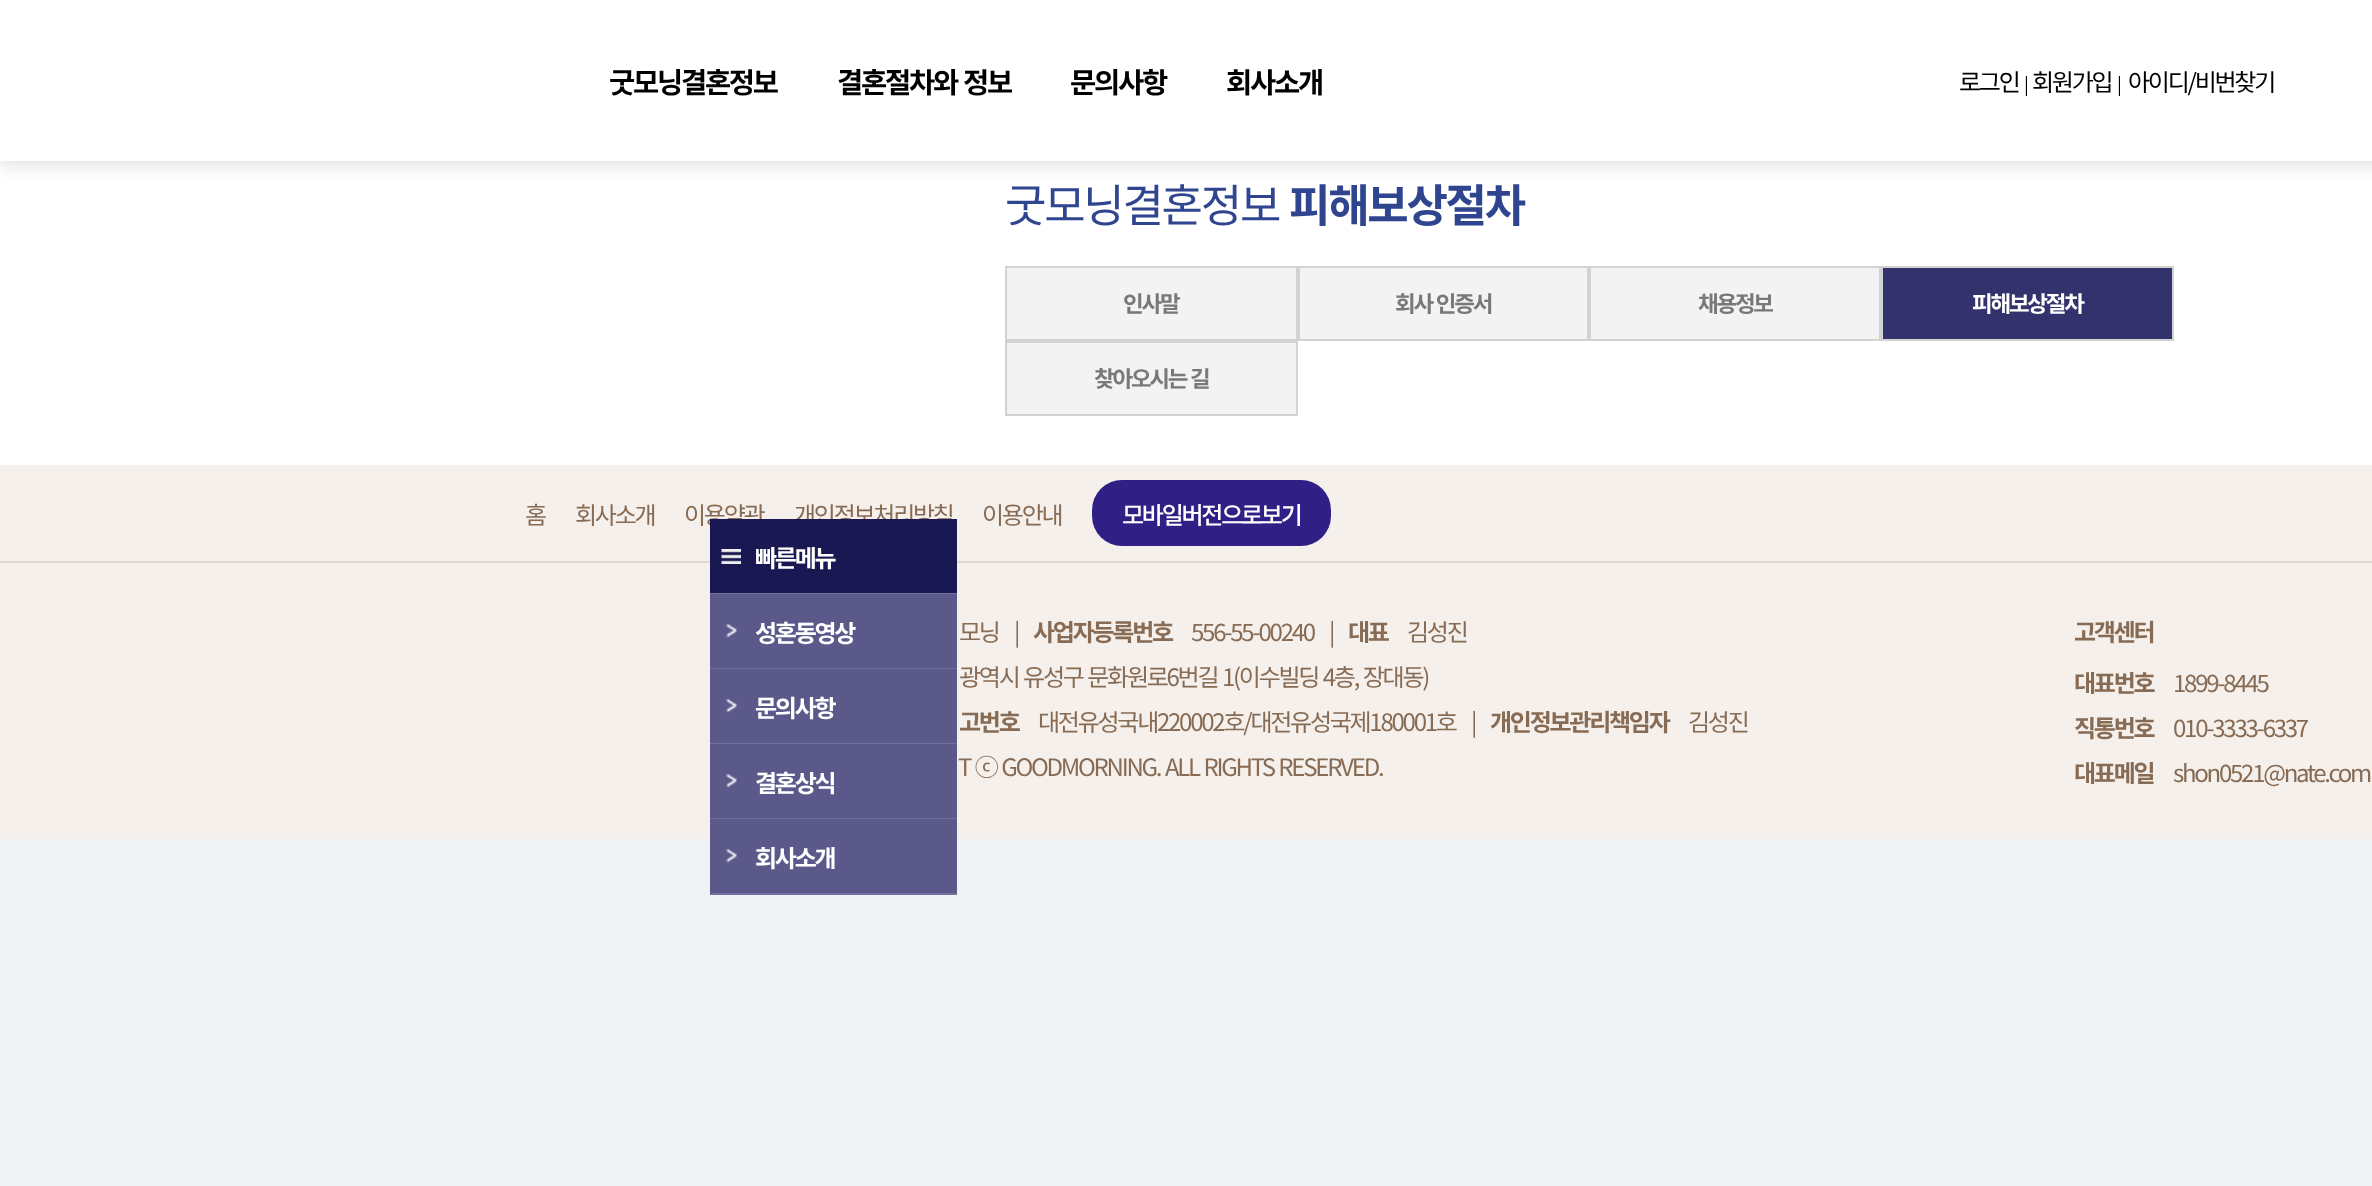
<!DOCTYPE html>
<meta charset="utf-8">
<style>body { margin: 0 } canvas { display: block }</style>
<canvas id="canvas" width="2372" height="1186"></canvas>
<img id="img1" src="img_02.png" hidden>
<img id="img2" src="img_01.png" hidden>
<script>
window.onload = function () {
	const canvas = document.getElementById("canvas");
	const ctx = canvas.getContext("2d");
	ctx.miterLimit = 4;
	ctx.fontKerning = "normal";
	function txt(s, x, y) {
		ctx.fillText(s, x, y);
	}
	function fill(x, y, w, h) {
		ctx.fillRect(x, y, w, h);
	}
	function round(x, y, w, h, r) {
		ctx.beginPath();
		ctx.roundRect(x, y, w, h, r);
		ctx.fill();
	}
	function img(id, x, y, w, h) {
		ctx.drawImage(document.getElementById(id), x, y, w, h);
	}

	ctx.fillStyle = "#F1F2F6";
	fill(0, 0, 2372, 1186);
	ctx.fillStyle = "#FFFFFF";
	fill(0, 161, 2372, 304);
	ctx.fillStyle = "rgba(0, 0, 0, 0.1)";
	ctx.filter = "blur(7.5px)";
	ctx.beginPath();
	ctx.rect(0, 6, 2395, 161);
	ctx.fill();
	ctx.filter = "none";
	ctx.fillStyle = "#FFFFFF";
	fill(0, 0, 2372, 161);
	ctx.fillStyle = "#F3F3F3";
	ctx.beginPath();
	ctx.rect(1006, 267, 291, 73);
	ctx.fill();
	ctx.strokeStyle = "#D2D2D2";
	ctx.lineWidth = 2;
	ctx.stroke();
	ctx.beginPath();
	ctx.rect(1299, 267, 289, 73);
	ctx.fill();
	ctx.stroke();
	ctx.beginPath();
	ctx.rect(1590, 267, 290, 73);
	ctx.fill();
	ctx.stroke();
	ctx.fillStyle = "#33326C";
	ctx.beginPath();
	ctx.rect(1882, 267, 291, 73);
	ctx.fill();
	ctx.stroke();
	ctx.fillStyle = "#F3F3F3";
	ctx.beginPath();
	ctx.rect(1006, 342, 291, 73);
	ctx.fill();
	ctx.stroke();
	ctx.fillStyle = "#F5F0EB";
	fill(0, 465, 2372, 374);
	ctx.fillStyle = "#716F9E";
	fill(710, 593, 247, 1);
	ctx.fillStyle = "#5B598A";
	fill(710, 594, 247, 74);
	img("img1", 726, 624, 11, 14);
	ctx.fillStyle = "#716F9E";
	fill(710, 668, 247, 1);
	ctx.fillStyle = "#5B598A";
	fill(710, 669, 247, 74);
	img("img1", 726, 699, 11, 14);
	ctx.fillStyle = "#716F9E";
	fill(710, 743, 247, 1);
	ctx.fillStyle = "#5B598A";
	fill(710, 744, 247, 74);
	img("img1", 726, 774, 11, 14);
	ctx.fillStyle = "#716F9E";
	fill(710, 818, 247, 1);
	ctx.fillStyle = "#5B598A";
	fill(710, 819, 247, 74);
	img("img1", 726, 849, 11, 14);
	ctx.fillStyle = "#716F9E";
	fill(710, 893, 247, 2);
	ctx.fillStyle = "#DFD5CD";
	fill(0, 561, 2372, 2);
	ctx.fillStyle = "#302085";
	round(1092, 480, 239, 66, 30);
	ctx.letterSpacing = "-2.25px";
	ctx.font = "bold 28.5px Noto Sans KR";
	ctx.fillStyle = "#000000";
	txt("굿모닝결혼정보", 609, 93);
	ctx.wordSpacing = "2px";
	txt("결혼절차와 정보", 837, 93);
	ctx.wordSpacing = "0px";
	txt("문의사항", 1070, 93);
	txt("회사소개", 1226, 93);
	ctx.font = "24px Noto Sans KR";
	txt("로그인", 1959, 91);
	ctx.font = "18px Noto Sans KR";
	txt("|", 2024, 91);
	ctx.font = "24px Noto Sans KR";
	txt("회원가입", 2032, 91);
	ctx.font = "18px Noto Sans KR";
	txt("|", 2117, 91);
	ctx.font = "24px Noto Sans KR";
	txt("아이디/비번찾기", 2128, 91);
	ctx.font = "45px Noto Sans KR";
	ctx.fillStyle = "#2F4590";
	txt("굿모닝결혼정보", 1005, 222);
	ctx.font = "bold 45px Noto Sans KR";
	txt("피해보상절차", 1289, 222);
	ctx.font = "bold 22.5px Noto Sans KR";
	ctx.fillStyle = "#787878";
	txt("인사말", 1123, 312);
	ctx.wordSpacing = "1px";
	txt("회사 인증서", 1395, 312);
	ctx.wordSpacing = "0px";
	txt("채용정보", 1698, 312);
	ctx.fillStyle = "#FFFFFF";
	txt("피해보상절차", 1972, 312);
	ctx.wordSpacing = "1px";
	ctx.fillStyle = "#787878";
	txt("찾아오시는 길", 1094, 387);
	ctx.wordSpacing = "0px";
	ctx.font = "bold 24px Noto Sans KR";
	ctx.fillStyle = "#FFFFFF";
	txt("성혼동영상", 755, 642);
	txt("문의사항", 755, 717);
	txt("결혼상식", 755, 792);
	txt("회사소개", 755, 867);
	ctx.font = "24px Noto Sans KR";
	ctx.fillStyle = "#876B54";
	txt("홈", 525, 524);
	txt("회사소개", 575, 524);
	txt("이용약관", 684, 524);
	txt("개인정보처리방침", 794, 524);
	ctx.fillStyle = "#191852";
	fill(710, 519, 247, 74);
	ctx.font = "bold 24px Noto Sans KR";
	ctx.fillStyle = "#FFFFFF";
	txt("빠른메뉴", 755, 567);
	img("img2", 721, 549, 20, 15);
	ctx.font = "24px Noto Sans KR";
	ctx.fillStyle = "#876B54";
	txt("이용안내", 982, 524);
	ctx.font = "500 24px Noto Sans KR";
	ctx.fillStyle = "#FFFFFF";
	txt("모바일버전으로보기", 1122, 524);
	ctx.font = "24px Noto Sans KR";
	ctx.fillStyle = "#876B54";
	txt("모닝", 959, 641);
	txt("|", 1014, 641);
	ctx.font = "bold 24px Noto Sans KR";
	txt("사업자등록번호", 1033, 641);
	ctx.font = "24px Noto Sans KR";
	txt("556-55-00240", 1191, 641);
	txt("|", 1329, 641);
	ctx.font = "bold 24px Noto Sans KR";
	txt("대표", 1348, 641);
	ctx.font = "24px Noto Sans KR";
	txt("김성진", 1407, 641);
	ctx.wordSpacing = "1.5px";
	txt("광역시 유성구 문화원로6번길 1(이수빌딩 4층, 장대동)", 959, 686);
	ctx.wordSpacing = "0px";
	ctx.font = "bold 24px Noto Sans KR";
	txt("고번호", 959, 731);
	ctx.font = "24px Noto Sans KR";
	txt("대전유성국내220002호/대전유성국제180001호", 1038, 731);
	txt("|", 1471, 731);
	ctx.font = "bold 24px Noto Sans KR";
	txt("개인정보관리책임자", 1490, 731);
	ctx.font = "24px Noto Sans KR";
	txt("김성진", 1688, 731);
	ctx.wordSpacing = "1.5px";
	txt("T ⓒ GOODMORNING. ALL RIGHTS RESERVED.", 958, 776);
	ctx.wordSpacing = "0px";
	ctx.font = "bold 24px Noto Sans KR";
	txt("고객센터", 2074, 641);
	txt("대표번호", 2074, 692);
	ctx.font = "24px Noto Sans KR";
	txt("1899-8445", 2173, 692);
	ctx.font = "bold 24px Noto Sans KR";
	txt("직통번호", 2074, 737);
	ctx.font = "24px Noto Sans KR";
	txt("010-3333-6337", 2173, 737);
	ctx.font = "bold 24px Noto Sans KR";
	txt("대표메일", 2074, 782);
	ctx.font = "24px Noto Sans KR";
	txt("shon0521@nate.com", 2173, 782);
};
</script>
